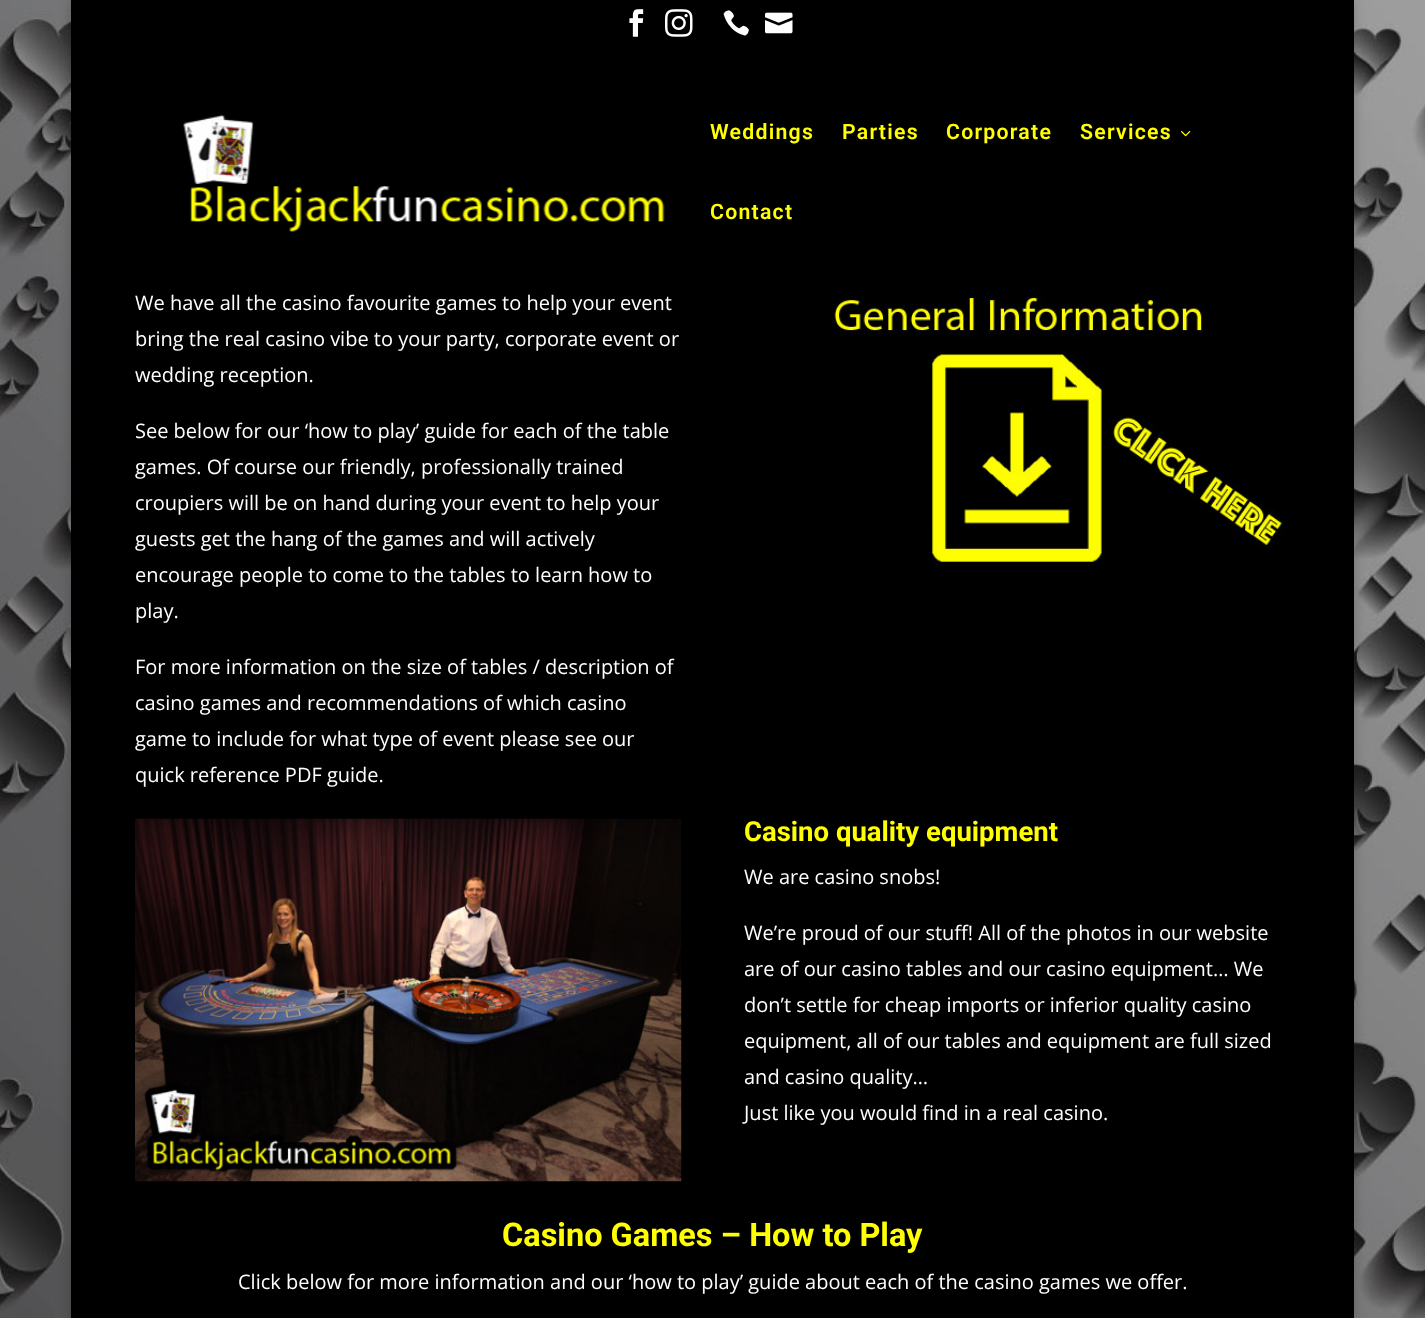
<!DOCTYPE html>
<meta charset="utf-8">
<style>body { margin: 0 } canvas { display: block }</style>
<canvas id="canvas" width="1425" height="1318"></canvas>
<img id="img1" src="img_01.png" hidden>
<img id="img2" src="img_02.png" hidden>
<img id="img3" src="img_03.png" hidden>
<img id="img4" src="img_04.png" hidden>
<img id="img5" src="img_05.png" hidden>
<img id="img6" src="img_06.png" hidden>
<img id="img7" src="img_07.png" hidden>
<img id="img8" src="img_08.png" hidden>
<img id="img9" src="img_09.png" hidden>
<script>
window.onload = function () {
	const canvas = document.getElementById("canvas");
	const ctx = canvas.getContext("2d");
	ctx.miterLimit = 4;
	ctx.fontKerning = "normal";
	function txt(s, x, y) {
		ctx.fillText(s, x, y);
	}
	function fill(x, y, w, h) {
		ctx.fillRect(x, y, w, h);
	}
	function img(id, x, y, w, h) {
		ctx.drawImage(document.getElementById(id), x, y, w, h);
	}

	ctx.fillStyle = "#FFFFFF";
	fill(0, 0, 1425, 1318);
	img("img1", 0, 0, 1425, 1318);
	ctx.fillStyle = "rgba(0, 0, 0, 0.2)";
	ctx.filter = "blur(6px)";
	ctx.beginPath();
	ctx.rect(71, 0, 1283, 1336);
	ctx.fill();
	ctx.filter = "none";
	ctx.fillStyle = "#000000";
	fill(71, 0, 1283, 1318);
	img("img2", 629, 9, 15, 28);
	img("img3", 665, 9, 28, 28);
	img("img4", 723, 10, 26, 26);
	img("img5", 765, 12, 28, 22);
	img("img6", 183, 114, 482, 118);
	img("img7", 1181, 131, 10, 6);
	img("img8", 830, 284, 454, 284);
	img("img9", 135, 818, 547, 364);
	ctx.letterSpacing = "1.25px";
	ctx.font = "600 21.25px Roboto";
	ctx.fillStyle = "#FFFF00";
	txt("Weddings", 710, 139);
	txt("Parties", 842, 139);
	txt("Corporate", 946, 139);
	txt("Services", 1080, 139);
	txt("Contact", 710, 219);
	ctx.letterSpacing = "0px";
	ctx.font = "20px Open Sans";
	ctx.fillStyle = "#FFFFFF";
	txt("We have all the casino favourite games to help your event", 135, 310);
	txt("bring the real casino vibe to your party, corporate event or", 135, 346);
	txt("wedding reception.", 135, 382);
	txt("See below for our ‘how to play’ guide for each of the table", 135, 438);
	txt("games. Of course our friendly, professionally trained", 135, 474);
	txt("croupiers will be on hand during your event to help your", 135, 510);
	txt("guests get the hang of the games and will actively", 135, 546);
	txt("encourage people to come to the tables to learn how to", 135, 582);
	txt("play.", 135, 618);
	txt("For more information on the size of tables / description of", 135, 674);
	txt("casino games and recommendations of which casino", 135, 710);
	txt("game to include for what type of event please see our", 135, 746);
	txt("quick reference PDF guide.", 135, 782);
	ctx.font = "bold 27.5px Roboto";
	ctx.fillStyle = "#FFFF00";
	txt("Casino quality equipment", 744, 841);
	ctx.font = "20px Open Sans";
	ctx.fillStyle = "#FFFFFF";
	txt("We are casino snobs!", 744, 884);
	txt("We’re proud of our stuff! All of the photos in our website", 744, 940);
	txt("are of our casino tables and our casino equipment… We", 744, 976);
	txt("don’t settle for cheap imports or inferior quality casino", 744, 1012);
	txt("equipment, all of our tables and equipment are full sized", 744, 1048);
	txt("and casino quality…", 744, 1084);
	txt("Just like you would find in a real casino.", 744, 1120);
	ctx.font = "bold 32.5px Roboto";
	ctx.fillStyle = "#FFFF00";
	txt("Casino Games – How to Play", 502, 1246);
	ctx.font = "20px Open Sans";
	ctx.fillStyle = "#FFFFFF";
	txt("Click below for more information and our ‘how to play’ guide about each of the casino games we offer.", 238, 1289);
};
</script>
